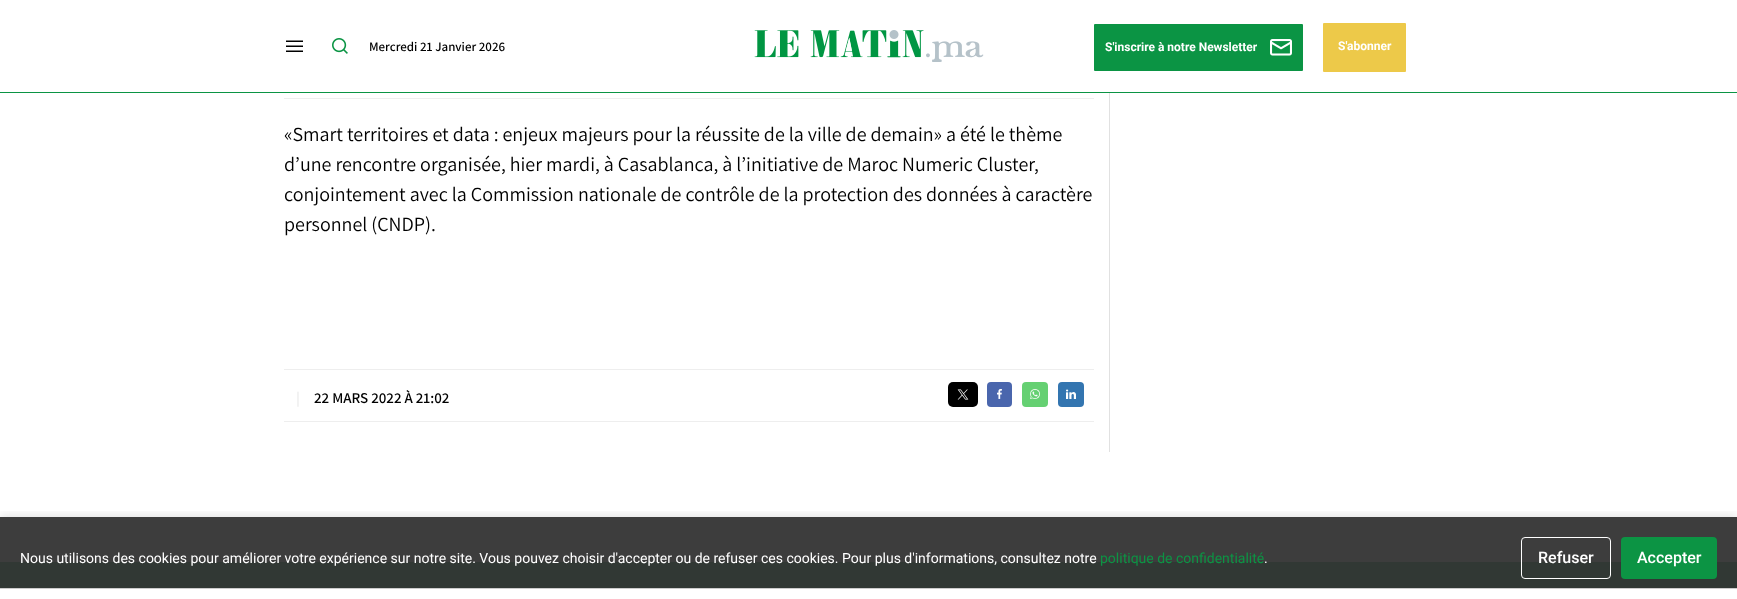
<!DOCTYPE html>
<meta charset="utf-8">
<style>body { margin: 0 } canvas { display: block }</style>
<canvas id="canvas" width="1737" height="599"></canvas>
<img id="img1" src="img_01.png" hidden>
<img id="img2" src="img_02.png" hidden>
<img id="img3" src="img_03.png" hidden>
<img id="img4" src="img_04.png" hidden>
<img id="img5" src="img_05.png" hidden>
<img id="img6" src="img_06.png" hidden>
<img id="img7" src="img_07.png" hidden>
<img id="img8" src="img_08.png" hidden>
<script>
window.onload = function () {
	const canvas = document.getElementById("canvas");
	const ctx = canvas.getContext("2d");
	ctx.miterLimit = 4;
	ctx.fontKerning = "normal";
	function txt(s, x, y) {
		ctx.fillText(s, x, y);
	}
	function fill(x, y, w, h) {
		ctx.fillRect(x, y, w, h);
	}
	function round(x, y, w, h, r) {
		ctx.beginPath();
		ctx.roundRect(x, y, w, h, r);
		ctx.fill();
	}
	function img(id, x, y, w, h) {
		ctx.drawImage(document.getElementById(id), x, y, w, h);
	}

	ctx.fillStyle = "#FFFFFF";
	fill(0, 0, 1737, 599);
	ctx.fillStyle = "#3D3D3D";
	fill(0, 517, 1737, 45);
	ctx.fillStyle = "#0B9444";
	fill(0, 92, 1737, 1);
	img("img1", 286, 40, 17, 12);
	img("img2", 332, 38, 16, 16);
	img("img3", 754, 30, 230, 32);
	round(1094, 24, 209, 47, 1);
	img("img4", 1270, 39, 22, 17);
	ctx.fillStyle = "#EDC949";
	round(1323, 23, 83, 49, 1);
	ctx.fillStyle = "#EEEEEE";
	fill(284, 98, 810, 1);
	fill(284, 369, 810, 1);
	fill(284, 421, 810, 1);
	ctx.fillStyle = "#000000";
	round(948, 382, 30, 25, 5);
	img("img5", 957, 389, 12, 11);
	ctx.fillStyle = "#4A66AD";
	round(987, 382, 25, 25, 4);
	img("img6", 997, 389, 5, 10);
	ctx.fillStyle = "#65D072";
	round(1022, 382, 26, 25, 4);
	img("img7", 1030, 389, 10, 10);
	ctx.fillStyle = "#3375B0";
	round(1058, 382, 26, 25, 4);
	img("img8", 1066, 389, 10, 10);
	ctx.fillStyle = "#E1E1E1";
	fill(1109, 93, 1, 359);
	ctx.fillStyle = "#313834";
	fill(0, 562, 1737, 26);
	ctx.save();
	ctx.beginPath();
	ctx.rect(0, 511, 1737, 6);
	ctx.clip();
	ctx.fillStyle = "rgba(0, 0, 0, 0.1)";
	ctx.filter = "blur(5px)";
	ctx.beginPath();
	ctx.rect(0, 515, 1737, 82);
	ctx.fill();
	ctx.filter = "none";
	ctx.restore();
	ctx.beginPath();
	ctx.roundRect(1521.5, 537.5, 89, 41, 3.5);
	ctx.strokeStyle = "#FFFFFF";
	ctx.stroke();
	ctx.fillStyle = "#0C9444";
	round(1621, 537, 96, 42, 4);
	ctx.fillStyle = "#CCCCCC";
	fill(0, 588, 1737, 1);
	ctx.font = "600 13px Assistant";
	ctx.fillStyle = "#000000";
	txt("Mercredi 21 Janvier 2026", 369, 51);
	ctx.font = "bold 12px Roboto";
	ctx.fillStyle = "#FFFFFF";
	txt("S'inscrire à notre Newsletter", 1105, 51);
	txt("S'abonner", 1338, 50);
	ctx.font = "20px Assistant";
	ctx.fillStyle = "#000000";
	txt("«Smart territoires et data : enjeux majeurs pour la réussite de la ville de demain» a été le thème", 284, 141);
	txt("d’une rencontre organisée, hier mardi, à Casablanca, à l’initiative de Maroc Numeric Cluster,", 284, 171);
	txt("conjointement avec la Commission nationale de contrôle de la protection des données à caractère", 284, 201);
	txt("personnel (CNDP).", 284, 231);
	ctx.font = "bold 15px Assistant";
	ctx.fillStyle = "#EEEEEE";
	txt("|", 296, 403);
	ctx.font = "600 15px Assistant";
	ctx.fillStyle = "#000000";
	txt("22 MARS 2022 À 21:02", 314, 403);
	ctx.font = "14px Roboto";
	ctx.fillStyle = "#FFFFFF";
	txt("Nous utilisons des cookies pour améliorer votre expérience sur notre site. Vous pouvez choisir d'accepter ou de refuser ces cookies. Pour plus d'informations, consultez notre", 20, 563);
	ctx.fillStyle = "#0C9444";
	txt("politique de confidentialité", 1100, 563);
	ctx.fillStyle = "#FFFFFF";
	txt(".", 1264, 563);
	ctx.font = "500 16px Roboto";
	txt("Refuser", 1538, 563);
	txt("Accepter", 1637, 563);
};
</script>
